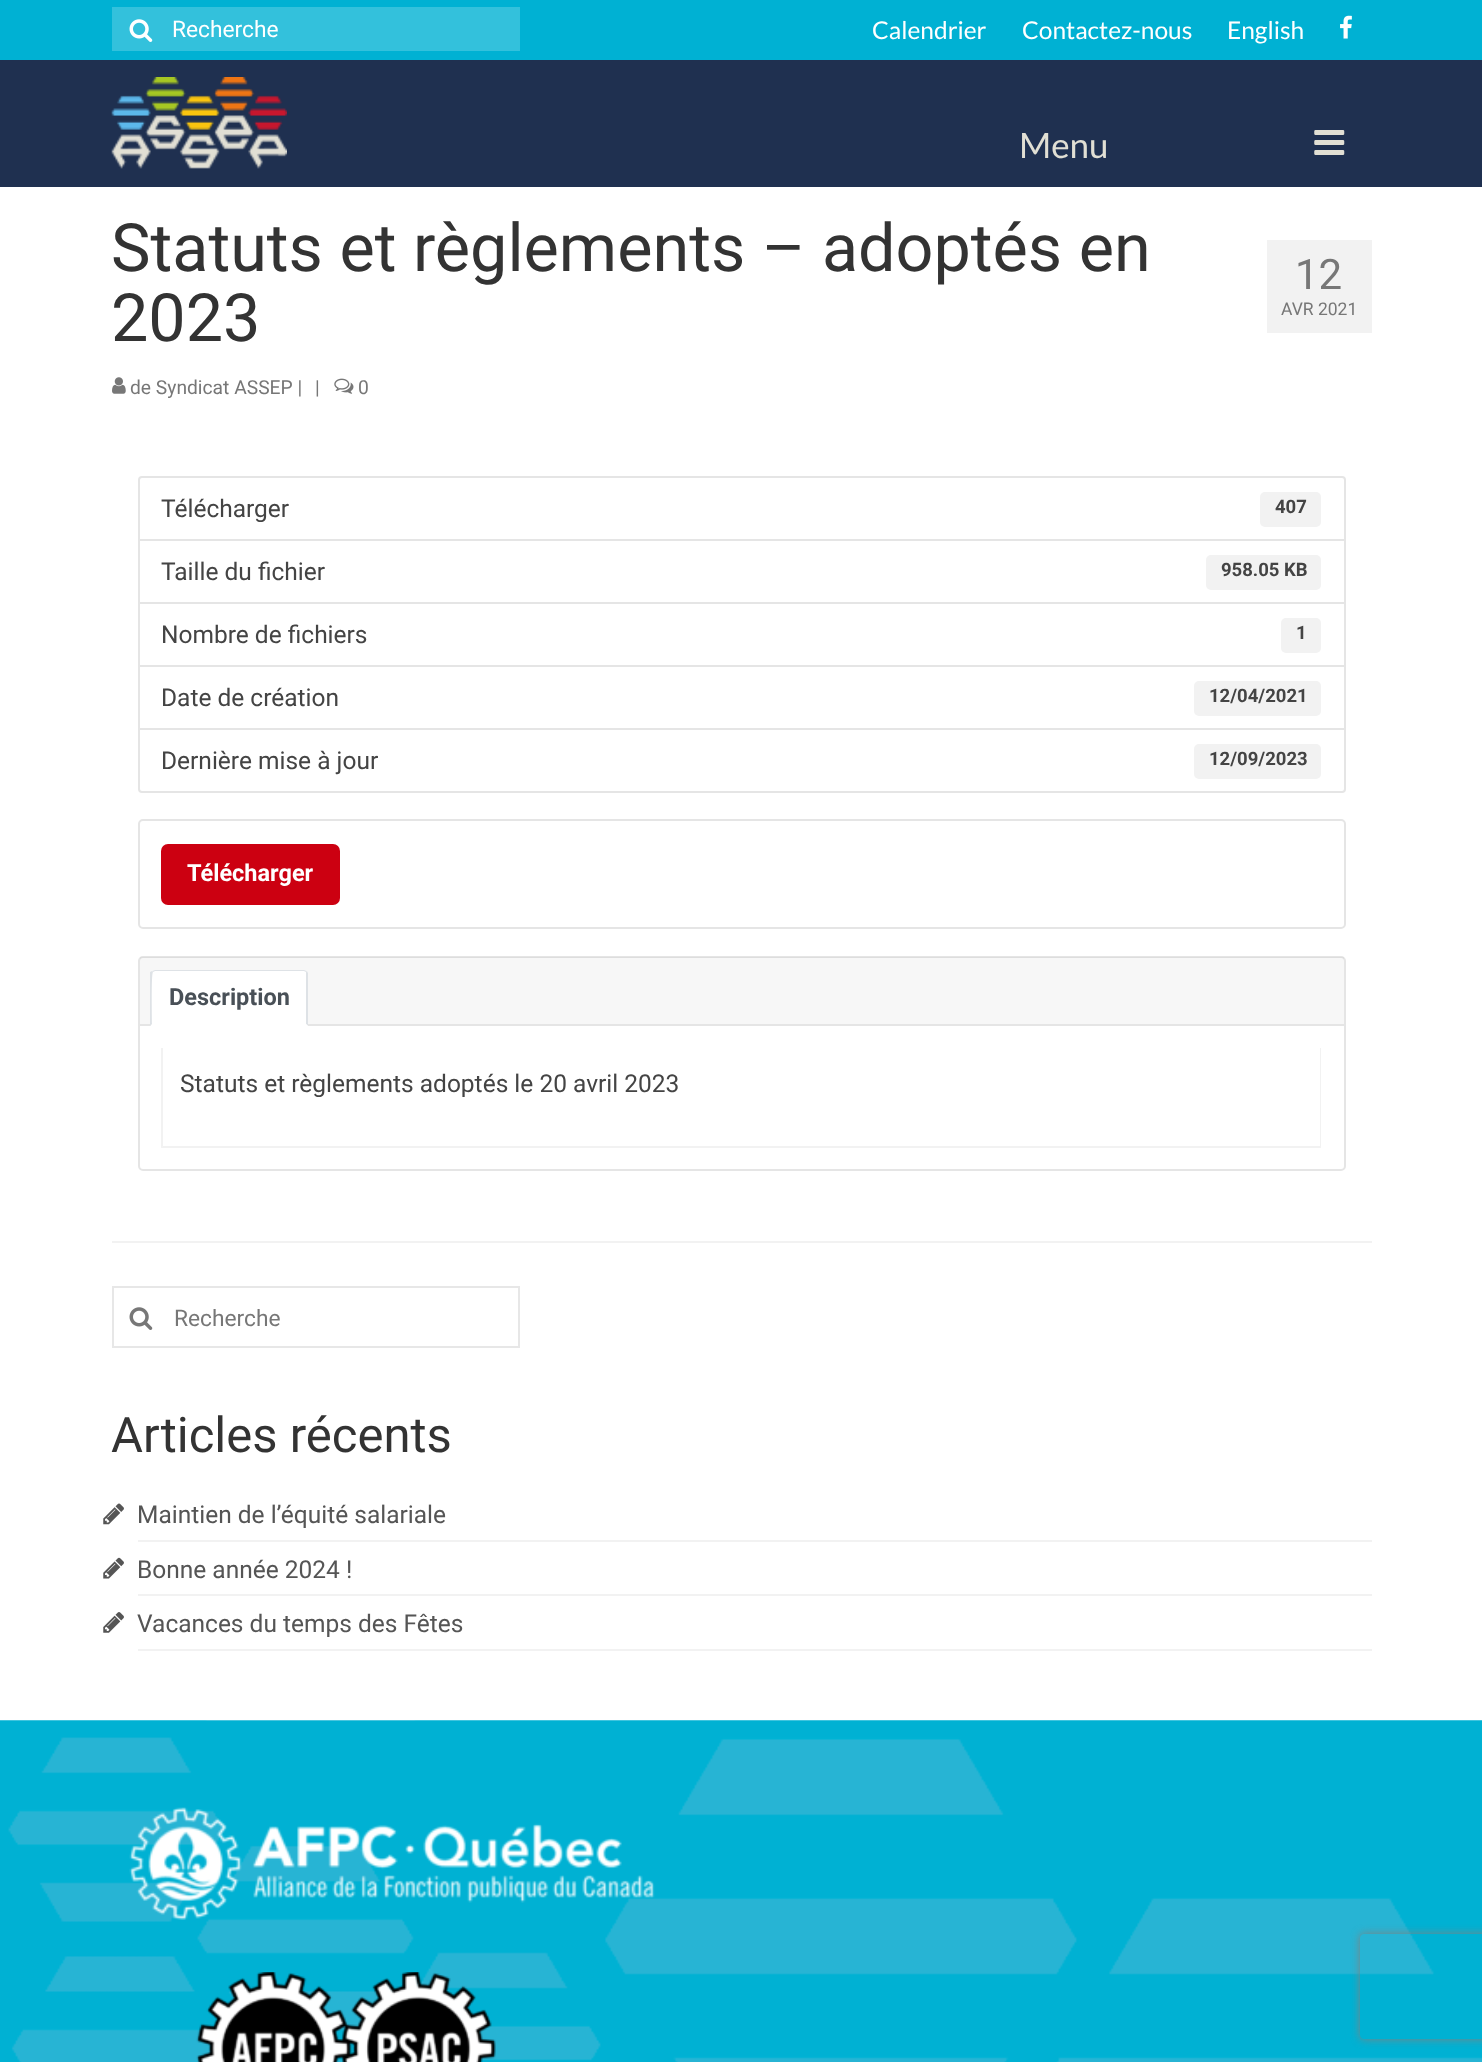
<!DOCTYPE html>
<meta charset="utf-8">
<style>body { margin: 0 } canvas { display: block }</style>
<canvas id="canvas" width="1482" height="2062"></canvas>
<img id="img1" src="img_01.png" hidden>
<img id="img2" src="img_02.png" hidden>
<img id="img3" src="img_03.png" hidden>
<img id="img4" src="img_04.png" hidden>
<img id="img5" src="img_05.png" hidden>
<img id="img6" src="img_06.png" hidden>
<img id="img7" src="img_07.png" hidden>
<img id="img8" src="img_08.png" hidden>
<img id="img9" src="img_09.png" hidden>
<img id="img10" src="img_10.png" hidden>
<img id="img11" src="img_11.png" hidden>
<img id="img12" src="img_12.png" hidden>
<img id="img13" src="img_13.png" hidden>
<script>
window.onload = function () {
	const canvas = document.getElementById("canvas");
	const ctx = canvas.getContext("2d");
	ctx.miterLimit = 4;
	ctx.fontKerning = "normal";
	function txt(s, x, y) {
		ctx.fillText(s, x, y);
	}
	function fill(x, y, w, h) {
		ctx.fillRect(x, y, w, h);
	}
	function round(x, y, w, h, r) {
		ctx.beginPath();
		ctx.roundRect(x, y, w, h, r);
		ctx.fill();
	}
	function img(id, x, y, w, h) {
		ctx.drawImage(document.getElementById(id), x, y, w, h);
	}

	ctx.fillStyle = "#FFFFFF";
	fill(0, 0, 1482, 2062);
	ctx.fillStyle = "#1F3050";
	fill(0, 60, 1482, 127);
	ctx.fillStyle = "#00B1D3";
	fill(0, 0, 1482, 60);
	ctx.fillStyle = "#33C1DC";
	fill(112, 7, 408, 44);
	img("img1", 129, 19, 24, 23);
	img("img2", 1340, 15, 12, 24);
	img("img3", 111, 77, 176, 92);
	img("img4", 1314, 130, 31, 25);
	img("img5", 112, 377, 14, 17);
	img("img6", 334, 378, 20, 16);
	ctx.fillStyle = "#F2F2F2";
	fill(1267, 240, 105, 93);
	ctx.beginPath();
	ctx.roundRect(139, 477, 1206, 63, [3, 3, 0, 0]);
	ctx.strokeStyle = "#E5E5E5";
	ctx.lineWidth = 2;
	ctx.stroke();
	round(1260, 492, 61, 35, 5);
	ctx.strokeRect(139, 540, 1206, 63);
	round(1206, 555, 115, 35, 5);
	ctx.strokeRect(139, 603, 1206, 63);
	round(1281, 618, 40, 35, 5);
	ctx.strokeRect(139, 666, 1206, 63);
	round(1194, 681, 127, 35, 5);
	ctx.fillStyle = "#FFFFFF";
	ctx.beginPath();
	ctx.roundRect(139, 729, 1206, 63, [0, 0, 3, 3]);
	ctx.fill();
	ctx.stroke();
	ctx.fillStyle = "#F2F2F2";
	round(1194, 744, 127, 35, 5);
	ctx.beginPath();
	ctx.roundRect(139, 820, 1206, 108, 4);
	ctx.stroke();
	ctx.fillStyle = "#CC0011";
	round(161, 844, 179, 61, 7);
	ctx.beginPath();
	ctx.roundRect(139, 957, 1206, 213, 4);
	ctx.stroke();
	ctx.fillStyle = "rgba(0, 0, 0, 0.03)";
	fill(140, 957, 1204, 67);
	ctx.fillStyle = "#E5E5E5";
	fill(140, 1024, 1204, 2);
	ctx.fillStyle = "#FFFFFF";
	ctx.beginPath();
	ctx.roundRect(151, 970, 157, 56, [4, 4, 0, 0]);
	ctx.fill();
	ctx.fillStyle = "#DEE2E6";
	ctx.beginPath();
	ctx.moveTo(155, 970);
	ctx.lineTo(152, 971);
	ctx.lineTo(153, 972);
	ctx.lineTo(155, 971);
	ctx.lineTo(304, 971);
	ctx.lineTo(306, 972);
	ctx.lineTo(307, 971);
	ctx.lineTo(304, 970);
	ctx.closePath();
	ctx.fill();
	ctx.beginPath();
	ctx.moveTo(307, 971);
	ctx.lineTo(308, 973);
	ctx.lineTo(308, 1026);
	ctx.lineTo(306, 1024);
	ctx.lineTo(306, 974);
	ctx.lineTo(306, 972);
	ctx.closePath();
	ctx.fill();
	ctx.fillStyle = "#FFFFFF";
	ctx.beginPath();
	ctx.moveTo(308, 1026);
	ctx.lineTo(306, 1024);
	ctx.lineTo(152, 1024);
	ctx.lineTo(150, 1026);
	ctx.closePath();
	ctx.fill();
	ctx.fillStyle = "#DEE2E6";
	ctx.beginPath();
	ctx.moveTo(150, 1026);
	ctx.lineTo(152, 1024);
	ctx.bezierCurveTo(152, 1018, 151, 974, 153, 972);
	ctx.lineTo(152, 971);
	ctx.lineTo(150, 972);
	ctx.closePath();
	ctx.fill();
	ctx.fillStyle = "#F2F2F2";
	ctx.beginPath();
	ctx.moveTo(1321, 1048);
	ctx.lineTo(1321, 1148);
	ctx.lineTo(1320, 1146);
	ctx.lineTo(1320, 1048);
	ctx.closePath();
	ctx.fill();
	ctx.fillStyle = "rgba(0, 0, 0, 0.05)";
	ctx.beginPath();
	ctx.moveTo(1321, 1148);
	ctx.lineTo(161, 1148);
	ctx.lineTo(163, 1146);
	ctx.lineTo(1320, 1146);
	ctx.closePath();
	ctx.fill();
	ctx.beginPath();
	ctx.moveTo(161, 1148);
	ctx.lineTo(161, 1048);
	ctx.lineTo(163, 1048);
	ctx.lineTo(163, 1146);
	ctx.closePath();
	ctx.fill();
	ctx.fillStyle = "#F2F2F2";
	fill(112, 1241, 1260, 2);
	ctx.strokeStyle = "#E7E7E7";
	ctx.strokeRect(113, 1287, 406, 60);
	img("img7", 129, 1307, 24, 23);
	fill(138, 1540, 1234, 2);
	img("img8", 103, 1503, 21, 22);
	fill(138, 1594, 1234, 2);
	img("img9", 103, 1557, 21, 22);
	fill(138, 1649, 1234, 2);
	img("img10", 103, 1612, 21, 21);
	img("img11", 0, 1720, 1482, 342);
	img("img12", 129, 1807, 526, 113);
	img("img13", 196, 1972, 300, 90);
	ctx.save();
	ctx.beginPath();
	ctx.moveTo(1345, 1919);
	ctx.lineTo(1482, 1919);
	ctx.lineTo(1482, 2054);
	ctx.lineTo(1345, 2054);
	ctx.closePath();
	ctx.moveTo(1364, 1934);
	ctx.lineTo(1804, 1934);
	ctx.bezierCurveTo(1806, 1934, 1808, 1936, 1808, 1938);
	ctx.lineTo(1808, 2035);
	ctx.bezierCurveTo(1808, 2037, 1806, 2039, 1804, 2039);
	ctx.lineTo(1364, 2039);
	ctx.bezierCurveTo(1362, 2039, 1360, 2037, 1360, 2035);
	ctx.lineTo(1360, 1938);
	ctx.bezierCurveTo(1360, 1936, 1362, 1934, 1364, 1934);
	ctx.closePath();
	ctx.clip("evenodd");
	ctx.fillStyle = "#808080";
	ctx.filter = "blur(4.5px)";
	ctx.beginPath();
	ctx.roundRect(1360, 1934, 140, 105, 4);
	ctx.fill();
	ctx.filter = "none";
	ctx.restore();
	ctx.font = "22.75px Roboto";
	ctx.fillStyle = "#FFFFFF";
	txt("Recherche", 172, 37);
	ctx.font = "24.5px Lato";
	txt("Calendrier", 872, 39);
	txt("Contactez-nous", 1022, 39);
	txt("English", 1227, 39);
	ctx.font = "35px Lato";
	ctx.fillStyle = "#E1DFD4";
	txt("Menu", 1019, 158);
	ctx.font = "66.5px Roboto";
	ctx.fillStyle = "#333333";
	txt("Statuts et règlements – adoptés en", 111, 271);
	txt("2023", 111, 341);
	ctx.font = "19.25px Roboto";
	ctx.fillStyle = "#777777";
	txt("de Syndicat ASSEP |", 130, 394);
	txt("|", 315, 394);
	txt("0", 358, 394);
	ctx.font = "42px Roboto";
	txt("12", 1295, 289);
	ctx.font = "17.5px Roboto";
	txt("AVR 2021", 1281, 315);
	ctx.font = "24.5px Roboto";
	ctx.fillStyle = "#444444";
	txt("Télécharger", 161, 517);
	ctx.font = "bold 18.5px Roboto";
	txt("407", 1275, 513);
	ctx.font = "24.5px Roboto";
	txt("Taille du fichier", 161, 580);
	ctx.font = "bold 18.5px Roboto";
	txt("958.05 KB", 1221, 576);
	ctx.font = "24.5px Roboto";
	txt("Nombre de fichiers", 161, 643);
	ctx.font = "bold 18.5px Roboto";
	txt("1", 1296, 639);
	ctx.font = "24.5px Roboto";
	txt("Date de création", 161, 706);
	ctx.font = "bold 18.5px Roboto";
	txt("12/04/2021", 1209, 702);
	ctx.font = "24.5px Roboto";
	txt("Dernière mise à jour", 161, 769);
	ctx.font = "bold 18.5px Roboto";
	txt("12/09/2023", 1209, 765);
	ctx.font = "bold 23.5px Roboto";
	ctx.fillStyle = "#FFFFFF";
	txt("Télécharger", 187, 881);
	ctx.fillStyle = "#495057";
	txt("Description", 169, 1005);
	ctx.font = "24.5px Roboto";
	ctx.fillStyle = "#444444";
	txt("Statuts et règlements adoptés le 20 avril 2023", 180, 1092);
	ctx.font = "22.75px Roboto";
	ctx.fillStyle = "#777777";
	txt("Recherche", 174, 1326);
	ctx.font = "49px Roboto";
	ctx.fillStyle = "#333333";
	txt("Articles récents", 111, 1452);
	ctx.font = "24.5px Roboto";
	ctx.fillStyle = "#555555";
	txt("Maintien de l’équité salariale", 137, 1523);
	txt("Bonne année 2024 !", 137, 1578);
	txt("Vacances du temps des Fêtes", 137, 1632);
};
</script>
